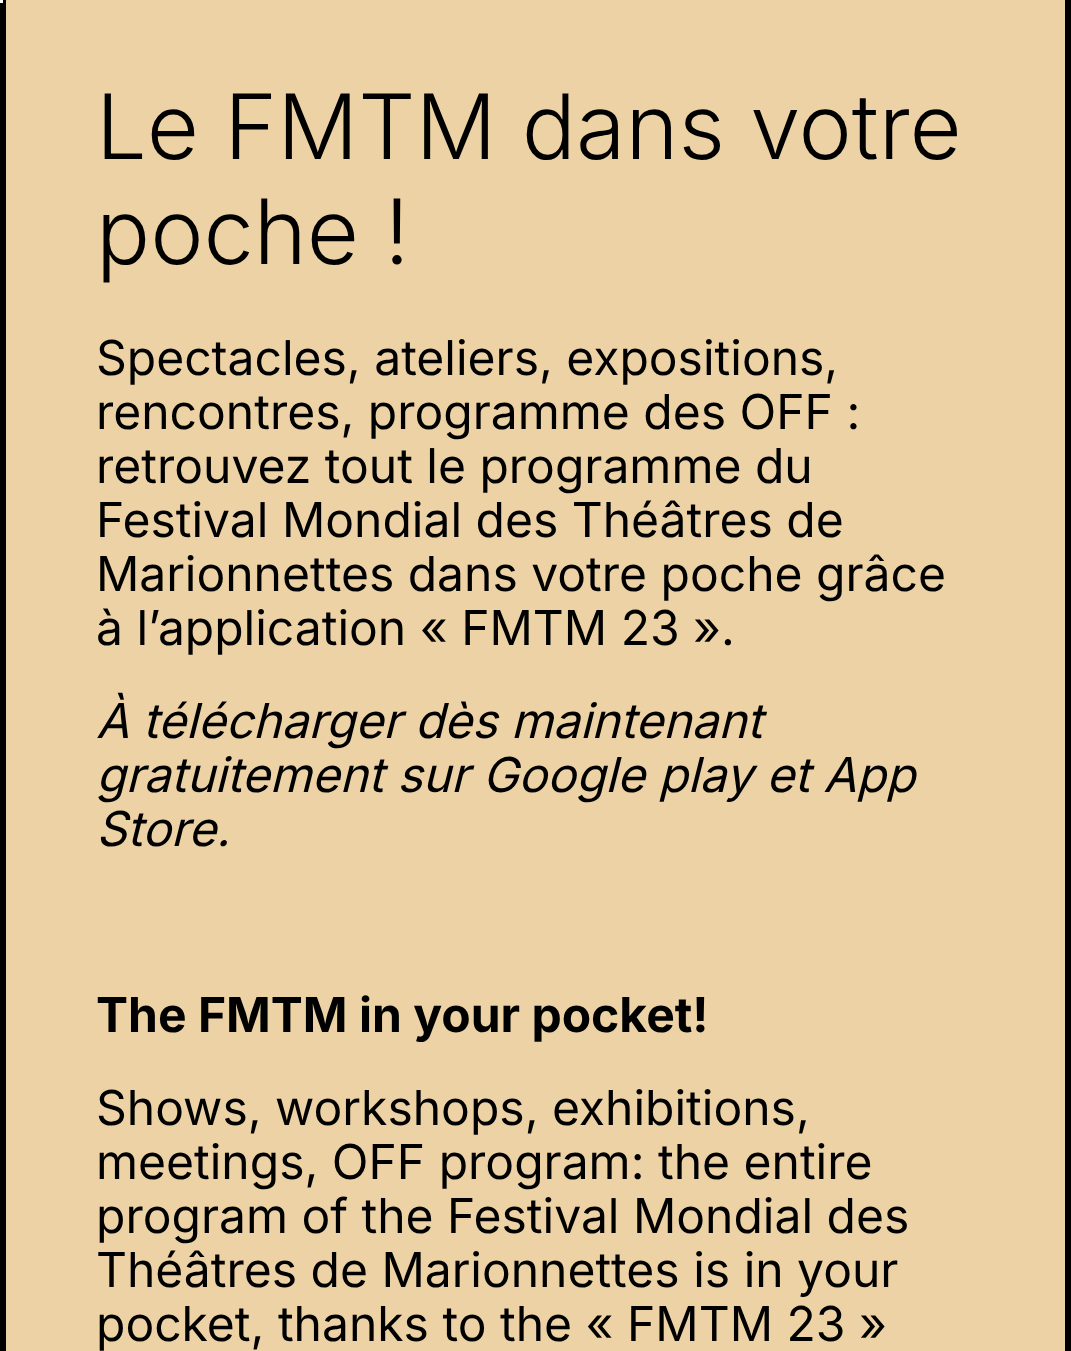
<!DOCTYPE html>
<meta charset="utf-8">
<style>body { margin: 0 } canvas { display: block }</style>
<canvas id="canvas" width="1071" height="1351"></canvas>
<script>
window.onload = function () {
	const canvas = document.getElementById("canvas");
	const ctx = canvas.getContext("2d");
	ctx.miterLimit = 4;
	ctx.fontKerning = "normal";
	function txt(s, x, y) {
		ctx.fillText(s, x, y);
	}
	function fill(x, y, w, h) {
		ctx.fillRect(x, y, w, h);
	}

	ctx.fillStyle = "#ECD2A4";
	fill(0, 0, 1071, 1351);
	ctx.fillStyle = "#000000";
	fill(0, 0, 6, 1351);
	ctx.fillStyle = "#FFFFFF";
	fill(0, 0, 3, 3);
	ctx.fillStyle = "#000000";
	fill(1065, 0, 6, 1351);
	ctx.font = "300 90px Inter";
	txt("Le FMTM dans votre", 96, 159);
	txt("poche !", 96, 264);
	ctx.font = "48px Inter";
	txt("Spectacles, ateliers, expositions,", 96, 375);
	txt("rencontres, programme des OFF :", 96, 429);
	txt("retrouvez tout le programme du", 96, 483);
	txt("Festival Mondial des Théâtres de", 96, 537);
	txt("Marionnettes dans votre poche grâce", 96, 591);
	txt("à l’application « FMTM 23 ».", 96, 645);
	ctx.font = "italic 48px Inter";
	txt("À télécharger dès maintenant", 96, 738);
	txt("gratuitement sur Google play et App", 96, 792);
	txt("Store.", 96, 846);
	ctx.font = "bold 48px Inter";
	txt("The FMTM in your pocket!", 96, 1032);
	ctx.font = "48px Inter";
	txt("Shows, workshops, exhibitions,", 96, 1125);
	txt("meetings, OFF program: the entire", 96, 1179);
	txt("program of the Festival Mondial des", 96, 1233);
	txt("Théâtres de Marionnettes is in your", 96, 1287);
	txt("pocket, thanks to the « FMTM 23 »", 96, 1341);
};
</script>
